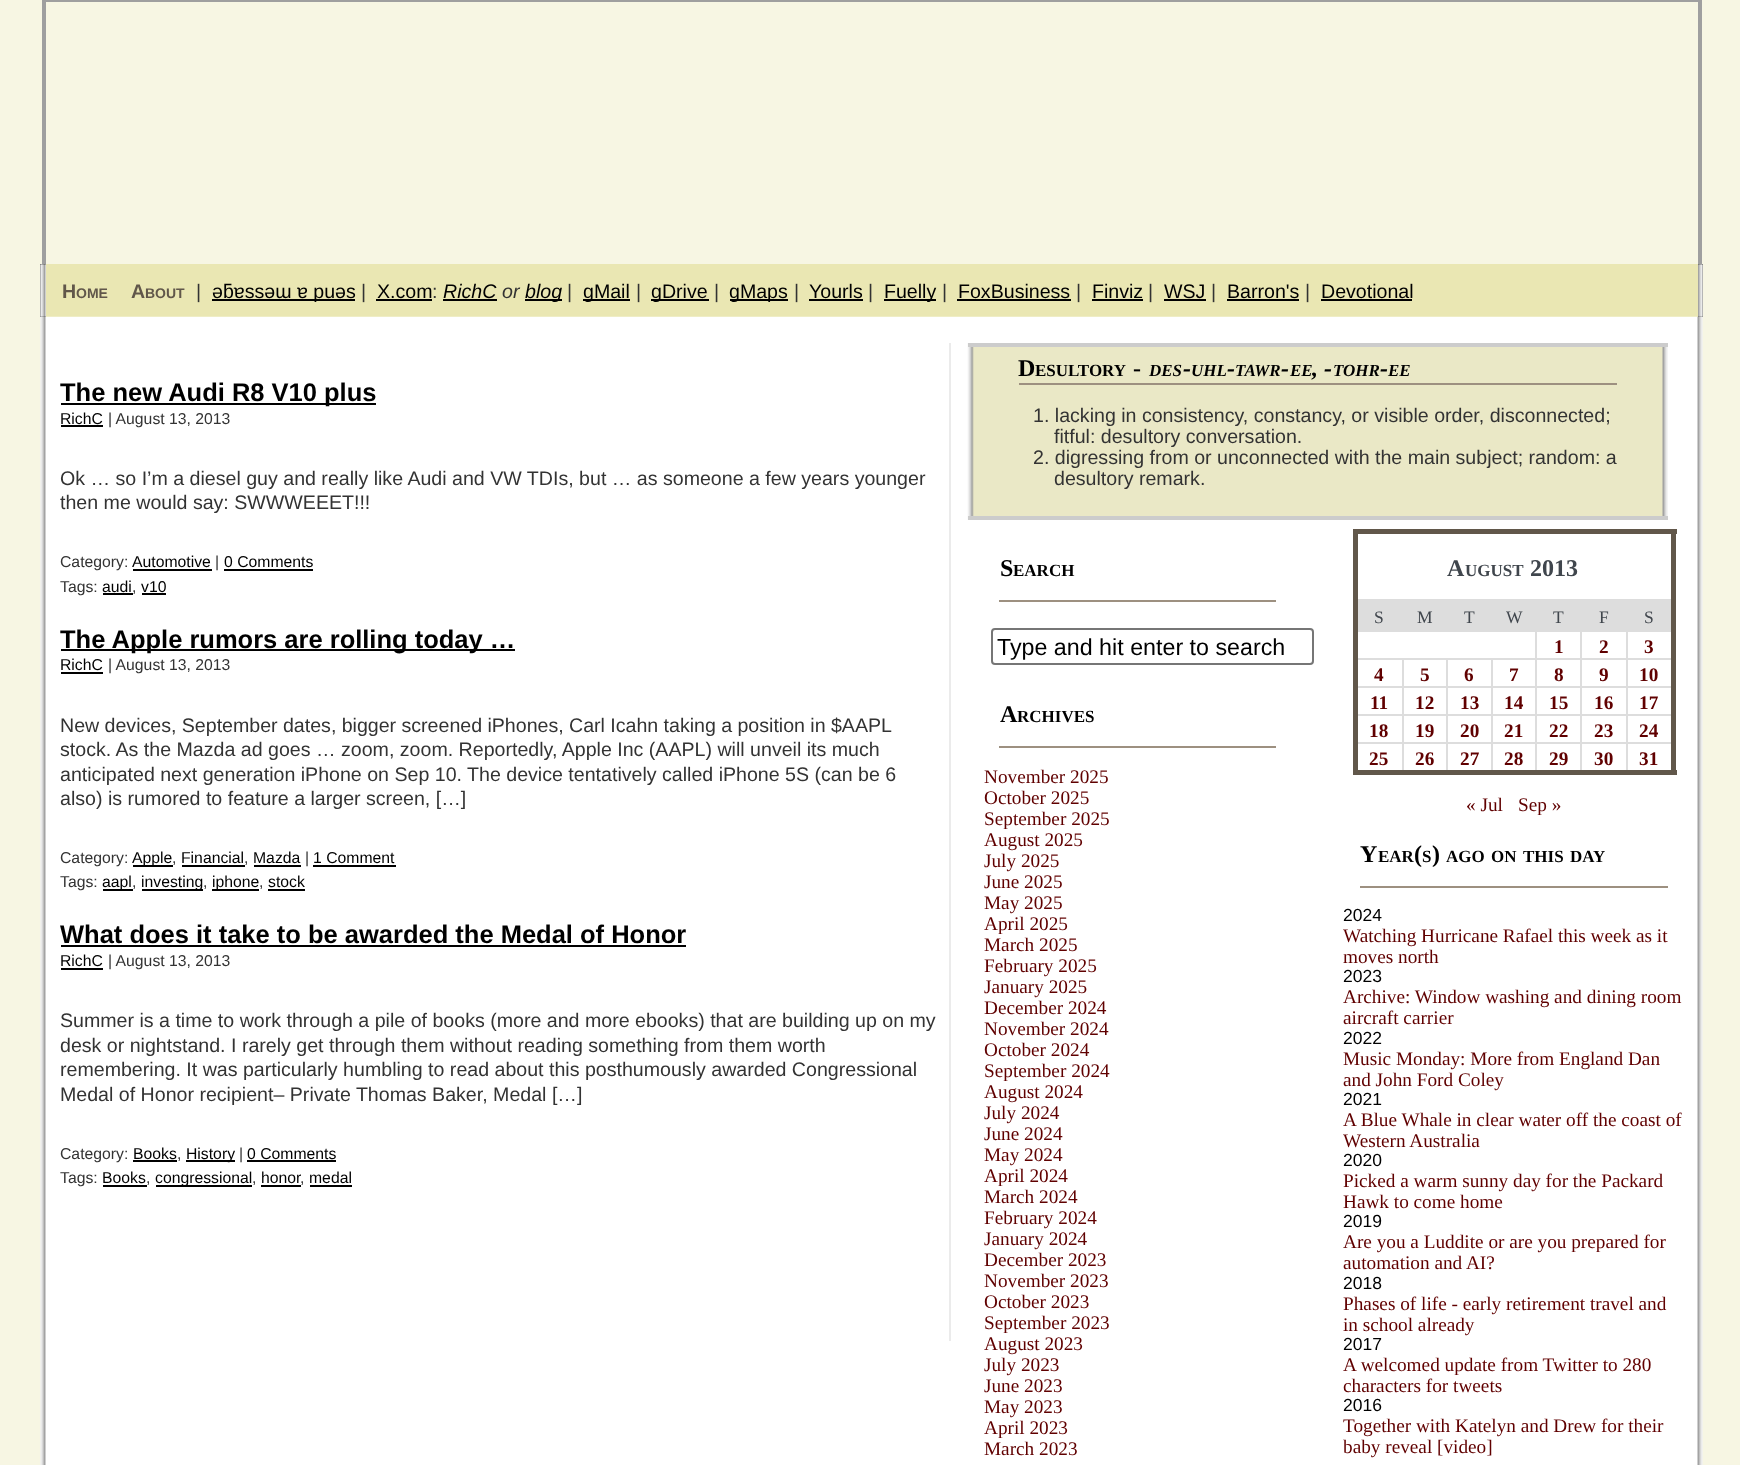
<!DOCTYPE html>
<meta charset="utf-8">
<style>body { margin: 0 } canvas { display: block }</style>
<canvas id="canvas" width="1740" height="1465"></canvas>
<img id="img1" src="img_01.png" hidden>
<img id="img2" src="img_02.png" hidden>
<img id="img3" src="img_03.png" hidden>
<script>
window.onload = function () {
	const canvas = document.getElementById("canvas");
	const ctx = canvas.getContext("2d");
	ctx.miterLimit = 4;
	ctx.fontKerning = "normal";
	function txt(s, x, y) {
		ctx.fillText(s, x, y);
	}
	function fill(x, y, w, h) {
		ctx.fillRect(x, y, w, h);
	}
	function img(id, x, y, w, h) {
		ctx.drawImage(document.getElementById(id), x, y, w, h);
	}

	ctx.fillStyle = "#F7F6E3";
	fill(0, 0, 1740, 1465);
	ctx.fillStyle = "#9F9F9F";
	fill(42, 0, 1659, 2);
	fill(1698, 0, 4, 264);
	fill(42, 0, 4, 264);
	ctx.fillStyle = "#000000";
	fill(40, 264, 1663, 53);
	img("img1", 40, 264, 1663, 53);
	ctx.fillStyle = "#EAE7B3";
	fill(46, 264, 1652, 53);
	ctx.fillStyle = "#000000";
	fill(212, 299, 143, 2);
	fill(376, 299, 56, 2);
	fill(443, 299, 54, 2);
	fill(525, 299, 37, 2);
	fill(583, 299, 47, 2);
	fill(651, 299, 58, 2);
	fill(730, 299, 58, 2);
	fill(809, 299, 54, 2);
	fill(884, 299, 52, 2);
	fill(957, 299, 114, 2);
	fill(1092, 299, 51, 2);
	fill(1164, 299, 42, 2);
	fill(1227, 299, 72, 2);
	fill(1321, 299, 91, 2);
	img("img2", 40, 316, 1663, 1149);
	ctx.fillStyle = "#EBEBEB";
	fill(949, 343, 2, 998);
	ctx.fillStyle = "#000000";
	fill(61, 403, 315, 2);
	fill(61, 425, 42, 2);
	fill(133, 569, 79, 2);
	fill(224, 569, 89, 2);
	fill(103, 593, 30, 2);
	fill(142, 593, 24, 2);
	fill(61, 649, 454, 2);
	fill(61, 672, 42, 2);
	fill(133, 865, 40, 2);
	fill(182, 865, 63, 2);
	fill(254, 865, 47, 2);
	fill(313, 865, 83, 2);
	fill(103, 889, 30, 2);
	fill(142, 889, 61, 2);
	fill(212, 889, 47, 2);
	fill(268, 889, 37, 2);
	fill(61, 945, 625, 2);
	fill(61, 968, 42, 2);
	fill(133, 1160, 44, 2);
	fill(186, 1160, 49, 2);
	fill(247, 1160, 89, 2);
	fill(103, 1185, 44, 2);
	fill(156, 1185, 96, 2);
	fill(261, 1185, 40, 2);
	fill(310, 1185, 42, 2);
	img("img3", 967, 343, 701, 177);
	ctx.fillStyle = "#CCCCCC";
	fill(968, 343, 700, 4);
	fill(968, 516, 700, 4);
	ctx.fillStyle = "#9D9080";
	fill(1019, 383, 598, 2);
	fill(999, 600, 277, 2);
	ctx.beginPath();
	ctx.roundRect(992, 629, 321, 35, 3);
	ctx.strokeStyle = "#767676";
	ctx.lineWidth = 2;
	ctx.stroke();
	fill(999, 746, 277, 2);
	ctx.fillStyle = "#61574A";
	fill(1353, 529, 324, 5);
	ctx.fillStyle = "#DDDDDD";
	fill(1355, 599, 320, 2);
	fill(1626, 630, 49, 2);
	fill(1626, 658, 49, 2);
	fill(1626, 686, 49, 2);
	fill(1626, 714, 49, 2);
	fill(1626, 742, 49, 2);
	ctx.fillStyle = "#61574A";
	fill(1671, 529, 5, 246);
	ctx.fillStyle = "#DDDDDD";
	fill(1626, 742, 2, 32);
	fill(1580, 742, 48, 2);
	fill(1580, 742, 2, 32);
	fill(1535, 742, 47, 2);
	fill(1535, 742, 2, 32);
	fill(1491, 742, 46, 2);
	fill(1491, 742, 2, 32);
	fill(1446, 742, 47, 2);
	fill(1446, 742, 2, 32);
	fill(1402, 742, 45, 2);
	fill(1402, 742, 2, 32);
	ctx.fillStyle = "#61574A";
	fill(1353, 770, 324, 5);
	ctx.fillStyle = "#DDDDDD";
	fill(1626, 714, 2, 30);
	fill(1580, 714, 48, 2);
	fill(1626, 686, 2, 30);
	fill(1580, 686, 48, 2);
	fill(1626, 658, 2, 30);
	fill(1580, 658, 48, 2);
	fill(1580, 714, 2, 30);
	fill(1535, 714, 47, 2);
	fill(1580, 686, 2, 30);
	fill(1535, 686, 47, 2);
	fill(1580, 658, 2, 30);
	fill(1535, 658, 47, 2);
	fill(1535, 714, 2, 30);
	fill(1491, 714, 46, 2);
	fill(1535, 686, 2, 30);
	fill(1491, 686, 46, 2);
	fill(1535, 658, 2, 30);
	fill(1491, 658, 46, 2);
	fill(1491, 714, 2, 30);
	fill(1446, 714, 47, 2);
	fill(1491, 686, 2, 30);
	fill(1446, 686, 47, 2);
	fill(1491, 658, 2, 30);
	fill(1446, 658, 47, 2);
	fill(1446, 714, 2, 30);
	fill(1402, 714, 45, 2);
	fill(1446, 686, 2, 30);
	fill(1402, 686, 45, 2);
	fill(1446, 658, 2, 30);
	fill(1402, 658, 45, 2);
	fill(1355, 742, 49, 2);
	fill(1402, 714, 2, 30);
	fill(1355, 714, 49, 2);
	fill(1402, 686, 2, 30);
	fill(1355, 686, 49, 2);
	fill(1402, 658, 2, 30);
	fill(1355, 658, 49, 2);
	ctx.fillStyle = "#61574A";
	fill(1353, 529, 5, 246);
	ctx.fillStyle = "#DDDDDD";
	fill(1358, 601, 268, 31);
	fill(1626, 601, 45, 29);
	fill(1535, 630, 2, 30);
	fill(1580, 630, 2, 30);
	fill(1626, 630, 2, 30);
	ctx.fillStyle = "#9D9080";
	fill(1360, 886, 308, 2);
	ctx.font = "bold 19.6px Liberation Sans";
	ctx.fillStyle = "#61574A";
	txt("H", 62, 298);
	ctx.font = "bold 14px Liberation Sans";
	txt("OME", 76, 298);
	ctx.font = "bold 19.6px Liberation Sans";
	txt("A", 131, 298);
	ctx.font = "bold 14px Liberation Sans";
	txt("BOUT", 145, 298);
	ctx.font = "19.6px Liberation Sans";
	ctx.fillStyle = "#333333";
	txt("|", 196, 298);
	ctx.fillStyle = "#000000";
	txt("ǝƃɐssǝɯ ɐ puǝs", 212, 298);
	ctx.fillStyle = "#333333";
	txt("|", 361, 298);
	ctx.fillStyle = "#000000";
	txt("X.com", 377, 298);
	ctx.fillStyle = "#333333";
	txt(":", 432, 298);
	ctx.font = "italic 19.6px Liberation Sans";
	ctx.fillStyle = "#000000";
	txt("RichC", 443, 298);
	ctx.fillStyle = "#333333";
	txt("or", 502, 298);
	ctx.fillStyle = "#000000";
	txt("blog", 525, 298);
	ctx.font = "19.6px Liberation Sans";
	ctx.fillStyle = "#333333";
	txt("|", 567, 298);
	ctx.fillStyle = "#000000";
	txt("gMail", 583, 298);
	ctx.fillStyle = "#333333";
	txt("|", 636, 298);
	ctx.fillStyle = "#000000";
	txt("gDrive", 651, 298);
	ctx.fillStyle = "#333333";
	txt("|", 714, 298);
	ctx.fillStyle = "#000000";
	txt("gMaps", 729, 298);
	ctx.fillStyle = "#333333";
	txt("|", 794, 298);
	ctx.fillStyle = "#000000";
	txt("Yourls", 809, 298);
	ctx.fillStyle = "#333333";
	txt("|", 868, 298);
	ctx.fillStyle = "#000000";
	txt("Fuelly", 884, 298);
	ctx.fillStyle = "#333333";
	txt("|", 942, 298);
	ctx.fillStyle = "#000000";
	txt("FoxBusiness", 958, 298);
	ctx.fillStyle = "#333333";
	txt("|", 1076, 298);
	ctx.fillStyle = "#000000";
	txt("Finviz", 1092, 298);
	ctx.fillStyle = "#333333";
	txt("|", 1148, 298);
	ctx.fillStyle = "#000000";
	txt("WSJ", 1164, 298);
	ctx.fillStyle = "#333333";
	txt("|", 1211, 298);
	ctx.fillStyle = "#000000";
	txt("Barron's", 1227, 298);
	ctx.fillStyle = "#333333";
	txt("|", 1305, 298);
	ctx.fillStyle = "#000000";
	txt("Devotional", 1321, 298);
	ctx.font = "bold 25.5px Liberation Sans";
	txt("The new Audi R8 V10 plus", 60, 401);
	ctx.font = "15.75px Liberation Sans";
	txt("RichC", 60, 424);
	ctx.fillStyle = "#333333";
	txt("| August 13, 2013", 108, 424);
	ctx.font = "19.6px Liberation Sans";
	txt("Ok … so I’m a diesel guy and really like Audi and VW TDIs, but … as someone a few years younger", 60, 485);
	txt("then me would say: SWWWEEET!!!", 60, 509);
	ctx.font = "15.75px Liberation Sans";
	txt("Category:", 60, 567);
	ctx.fillStyle = "#000000";
	txt("Automotive", 132, 567);
	ctx.fillStyle = "#333333";
	txt("|", 215, 567);
	ctx.fillStyle = "#000000";
	txt("0 Comments", 224, 567);
	ctx.fillStyle = "#333333";
	txt("Tags:", 60, 592);
	ctx.fillStyle = "#000000";
	txt("audi", 102, 592);
	ctx.fillStyle = "#333333";
	txt(",", 132, 592);
	ctx.fillStyle = "#000000";
	txt("v10", 141, 592);
	ctx.font = "bold 25.5px Liberation Sans";
	txt("The Apple rumors are rolling today …", 60, 648);
	ctx.font = "15.75px Liberation Sans";
	txt("RichC", 60, 670);
	ctx.fillStyle = "#333333";
	txt("| August 13, 2013", 108, 670);
	ctx.wordSpacing = "-0.1px";
	ctx.font = "19.6px Liberation Sans";
	txt("New devices, September dates, bigger screened iPhones, Carl Icahn taking a position in $AAPL", 60, 732);
	ctx.wordSpacing = "0px";
	txt("stock. As the Mazda ad goes … zoom, zoom. Reportedly, Apple Inc (AAPL) will unveil its much", 60, 756);
	txt("anticipated next generation iPhone on Sep 10. The device tentatively called iPhone 5S (can be 6", 60, 781);
	txt("also) is rumored to feature a larger screen, […]", 60, 805);
	ctx.font = "15.75px Liberation Sans";
	txt("Category:", 60, 863);
	ctx.fillStyle = "#000000";
	txt("Apple", 132, 863);
	ctx.fillStyle = "#333333";
	txt(",", 172, 863);
	ctx.fillStyle = "#000000";
	txt("Financial", 181, 863);
	ctx.fillStyle = "#333333";
	txt(",", 244, 863);
	ctx.fillStyle = "#000000";
	txt("Mazda", 253, 863);
	ctx.fillStyle = "#333333";
	txt("|", 305, 863);
	ctx.fillStyle = "#000000";
	txt("1 Comment", 313, 863);
	ctx.fillStyle = "#333333";
	txt("Tags:", 60, 887);
	ctx.fillStyle = "#000000";
	txt("aapl", 102, 887);
	ctx.fillStyle = "#333333";
	txt(",", 132, 887);
	ctx.fillStyle = "#000000";
	txt("investing", 141, 887);
	ctx.fillStyle = "#333333";
	txt(",", 203, 887);
	ctx.fillStyle = "#000000";
	txt("iphone", 212, 887);
	ctx.fillStyle = "#333333";
	txt(",", 259, 887);
	ctx.fillStyle = "#000000";
	txt("stock", 268, 887);
	ctx.font = "bold 25.5px Liberation Sans";
	txt("What does it take to be awarded the Medal of Honor", 60, 943);
	ctx.font = "15.75px Liberation Sans";
	txt("RichC", 60, 966);
	ctx.fillStyle = "#333333";
	txt("| August 13, 2013", 108, 966);
	ctx.font = "19.6px Liberation Sans";
	txt("Summer is a time to work through a pile of books (more and more ebooks) that are building up on my", 60, 1027);
	txt("desk or nightstand. I rarely get through them without reading something from them worth", 60, 1052);
	txt("remembering. It was particularly humbling to read about this posthumously awarded Congressional", 60, 1076);
	txt("Medal of Honor recipient– Private Thomas Baker, Medal […]", 60, 1101);
	ctx.font = "15.75px Liberation Sans";
	txt("Category:", 60, 1159);
	ctx.fillStyle = "#000000";
	txt("Books", 133, 1159);
	ctx.fillStyle = "#333333";
	txt(",", 177, 1159);
	ctx.fillStyle = "#000000";
	txt("History", 186, 1159);
	ctx.fillStyle = "#333333";
	txt("|", 239, 1159);
	ctx.fillStyle = "#000000";
	txt("0 Comments", 247, 1159);
	ctx.fillStyle = "#333333";
	txt("Tags:", 60, 1183);
	ctx.fillStyle = "#000000";
	txt("Books", 102, 1183);
	ctx.fillStyle = "#333333";
	txt(",", 146, 1183);
	ctx.fillStyle = "#000000";
	txt("congressional", 155, 1183);
	ctx.fillStyle = "#333333";
	txt(",", 252, 1183);
	ctx.fillStyle = "#000000";
	txt("honor", 261, 1183);
	ctx.fillStyle = "#333333";
	txt(",", 300, 1183);
	ctx.fillStyle = "#000000";
	txt("medal", 309, 1183);
	ctx.font = "bold 24px Liberation Serif";
	txt("D", 1018, 376);
	ctx.font = "bold 17px Liberation Serif";
	txt("ESULTORY", 1035, 376);
	ctx.font = "bold 24px Liberation Serif";
	txt("-", 1133, 376);
	ctx.font = "italic bold 17px Liberation Serif";
	txt("DES", 1149, 376);
	ctx.font = "italic bold 24px Liberation Serif";
	txt("-", 1183, 376);
	ctx.font = "italic bold 17px Liberation Serif";
	txt("UHL", 1191, 376);
	ctx.font = "italic bold 24px Liberation Serif";
	txt("-", 1227, 376);
	ctx.font = "italic bold 17px Liberation Serif";
	txt("TAWR", 1235, 376);
	ctx.font = "italic bold 24px Liberation Serif";
	txt("-", 1281, 376);
	ctx.font = "italic bold 17px Liberation Serif";
	txt("EE", 1290, 376);
	ctx.font = "italic bold 24px Liberation Serif";
	txt(", -", 1312, 376);
	ctx.font = "italic bold 17px Liberation Serif";
	txt("TOHR", 1333, 376);
	ctx.font = "italic bold 24px Liberation Serif";
	txt("-", 1380, 376);
	ctx.font = "italic bold 17px Liberation Serif";
	txt("EE", 1388, 376);
	ctx.font = "19.6px Liberation Sans";
	ctx.fillStyle = "#333333";
	txt("1. lacking in consistency, constancy, or visible order, disconnected;", 1033, 422);
	txt("fitful: desultory conversation.", 1054, 443);
	txt("2. digressing from or unconnected with the main subject; random: a", 1033, 464);
	txt("desultory remark.", 1054, 485);
	ctx.font = "bold 24px Liberation Serif";
	ctx.fillStyle = "#000000";
	txt("S", 1000, 576);
	ctx.font = "bold 17px Liberation Serif";
	txt("EARCH", 1013, 576);
	ctx.font = "23.25px Liberation Sans";
	txt("Type and hit enter to search", 997, 655);
	ctx.font = "bold 24px Liberation Serif";
	txt("A", 1000, 722);
	ctx.font = "bold 17px Liberation Serif";
	txt("RCHIVES", 1017, 722);
	ctx.font = "19.25px Liberation Serif";
	ctx.fillStyle = "#600000";
	txt("November 2025", 984, 783);
	txt("October 2025", 984, 804);
	txt("September 2025", 984, 825);
	txt("August 2025", 984, 846);
	txt("July 2025", 984, 867);
	txt("June 2025", 984, 888);
	txt("May 2025", 984, 909);
	txt("April 2025", 984, 930);
	txt("March 2025", 984, 951);
	txt("February 2025", 984, 972);
	txt("January 2025", 984, 993);
	txt("December 2024", 984, 1014);
	txt("November 2024", 984, 1035);
	txt("October 2024", 984, 1056);
	txt("September 2024", 984, 1077);
	txt("August 2024", 984, 1098);
	txt("July 2024", 984, 1119);
	txt("June 2024", 984, 1140);
	txt("May 2024", 984, 1161);
	txt("April 2024", 984, 1182);
	txt("March 2024", 984, 1203);
	txt("February 2024", 984, 1224);
	txt("January 2024", 984, 1245);
	txt("December 2023", 984, 1266);
	txt("November 2023", 984, 1287);
	txt("October 2023", 984, 1308);
	txt("September 2023", 984, 1329);
	txt("August 2023", 984, 1350);
	txt("July 2023", 984, 1371);
	txt("June 2023", 984, 1392);
	txt("May 2023", 984, 1413);
	txt("April 2023", 984, 1434);
	txt("March 2023", 984, 1455);
	ctx.font = "bold 24px Liberation Serif";
	ctx.fillStyle = "#40464D";
	txt("A", 1447, 576);
	ctx.font = "bold 17px Liberation Serif";
	txt("UGUST", 1465, 576);
	ctx.font = "bold 24px Liberation Serif";
	txt("2013", 1530, 576);
	ctx.font = "17.5px Liberation Serif";
	txt("S", 1374, 623);
	txt("M", 1417, 623);
	txt("T", 1464, 623);
	txt("W", 1506, 623);
	txt("T", 1553, 623);
	txt("F", 1599, 623);
	txt("S", 1644, 623);
	ctx.font = "bold 19.25px Liberation Serif";
	ctx.fillStyle = "#600000";
	txt("1", 1554, 653);
	txt("2", 1599, 653);
	txt("3", 1644, 653);
	txt("4", 1374, 681);
	txt("5", 1420, 681);
	txt("6", 1464, 681);
	txt("7", 1509, 681);
	txt("8", 1554, 681);
	txt("9", 1599, 681);
	txt("10", 1639, 681);
	txt("11", 1370, 709);
	txt("12", 1415, 709);
	txt("13", 1460, 709);
	txt("14", 1504, 709);
	txt("15", 1549, 709);
	txt("16", 1594, 709);
	txt("17", 1639, 709);
	txt("18", 1369, 737);
	txt("19", 1415, 737);
	txt("20", 1460, 737);
	txt("21", 1504, 737);
	txt("22", 1549, 737);
	txt("23", 1594, 737);
	txt("24", 1639, 737);
	txt("25", 1369, 765);
	txt("26", 1415, 765);
	txt("27", 1460, 765);
	txt("28", 1504, 765);
	txt("29", 1549, 765);
	txt("30", 1594, 765);
	txt("31", 1639, 765);
	ctx.font = "19.25px Liberation Serif";
	txt("« Jul", 1466, 811);
	txt("Sep »", 1518, 811);
	ctx.font = "bold 24px Liberation Serif";
	ctx.fillStyle = "#000000";
	txt("Y", 1360, 862);
	ctx.font = "bold 17px Liberation Serif";
	txt("EAR", 1378, 862);
	ctx.font = "bold 24px Liberation Serif";
	txt("(", 1414, 862);
	ctx.font = "bold 17px Liberation Serif";
	txt("S", 1422, 862);
	ctx.font = "bold 24px Liberation Serif";
	txt(")", 1432, 862);
	ctx.font = "bold 17px Liberation Serif";
	txt("AGO", 1446, 862);
	txt("ON", 1491, 862);
	txt("THIS", 1523, 862);
	txt("DAY", 1570, 862);
	ctx.font = "17.5px Liberation Sans";
	txt("2024", 1343, 921);
	ctx.font = "19.25px Liberation Serif";
	ctx.fillStyle = "#600000";
	txt("Watching Hurricane Rafael this week as it", 1343, 942);
	txt("moves north", 1343, 963);
	ctx.font = "17.5px Liberation Sans";
	ctx.fillStyle = "#000000";
	txt("2023", 1343, 982);
	ctx.font = "19.25px Liberation Serif";
	ctx.fillStyle = "#600000";
	txt("Archive: Window washing and dining room", 1343, 1003);
	txt("aircraft carrier", 1343, 1024);
	ctx.font = "17.5px Liberation Sans";
	ctx.fillStyle = "#000000";
	txt("2022", 1343, 1044);
	ctx.font = "19.25px Liberation Serif";
	ctx.fillStyle = "#600000";
	txt("Music Monday: More from England Dan", 1343, 1065);
	txt("and John Ford Coley", 1343, 1086);
	ctx.font = "17.5px Liberation Sans";
	ctx.fillStyle = "#000000";
	txt("2021", 1343, 1105);
	ctx.font = "19.25px Liberation Serif";
	ctx.fillStyle = "#600000";
	txt("A Blue Whale in clear water off the coast of", 1343, 1126);
	txt("Western Australia", 1343, 1147);
	ctx.font = "17.5px Liberation Sans";
	ctx.fillStyle = "#000000";
	txt("2020", 1343, 1166);
	ctx.font = "19.25px Liberation Serif";
	ctx.fillStyle = "#600000";
	txt("Picked a warm sunny day for the Packard", 1343, 1187);
	txt("Hawk to come home", 1343, 1208);
	ctx.font = "17.5px Liberation Sans";
	ctx.fillStyle = "#000000";
	txt("2019", 1343, 1227);
	ctx.font = "19.25px Liberation Serif";
	ctx.fillStyle = "#600000";
	txt("Are you a Luddite or are you prepared for", 1343, 1248);
	txt("automation and AI?", 1343, 1269);
	ctx.font = "17.5px Liberation Sans";
	ctx.fillStyle = "#000000";
	txt("2018", 1343, 1289);
	ctx.font = "19.25px Liberation Serif";
	ctx.fillStyle = "#600000";
	txt("Phases of life - early retirement travel and", 1343, 1310);
	txt("in school already", 1343, 1331);
	ctx.font = "17.5px Liberation Sans";
	ctx.fillStyle = "#000000";
	txt("2017", 1343, 1350);
	ctx.font = "19.25px Liberation Serif";
	ctx.fillStyle = "#600000";
	txt("A welcomed update from Twitter to 280", 1343, 1371);
	txt("characters for tweets", 1343, 1392);
	ctx.font = "17.5px Liberation Sans";
	ctx.fillStyle = "#000000";
	txt("2016", 1343, 1411);
	ctx.font = "19.25px Liberation Serif";
	ctx.fillStyle = "#600000";
	txt("Together with Katelyn and Drew for their", 1343, 1432);
	txt("baby reveal [video]", 1343, 1453);
};
</script>
